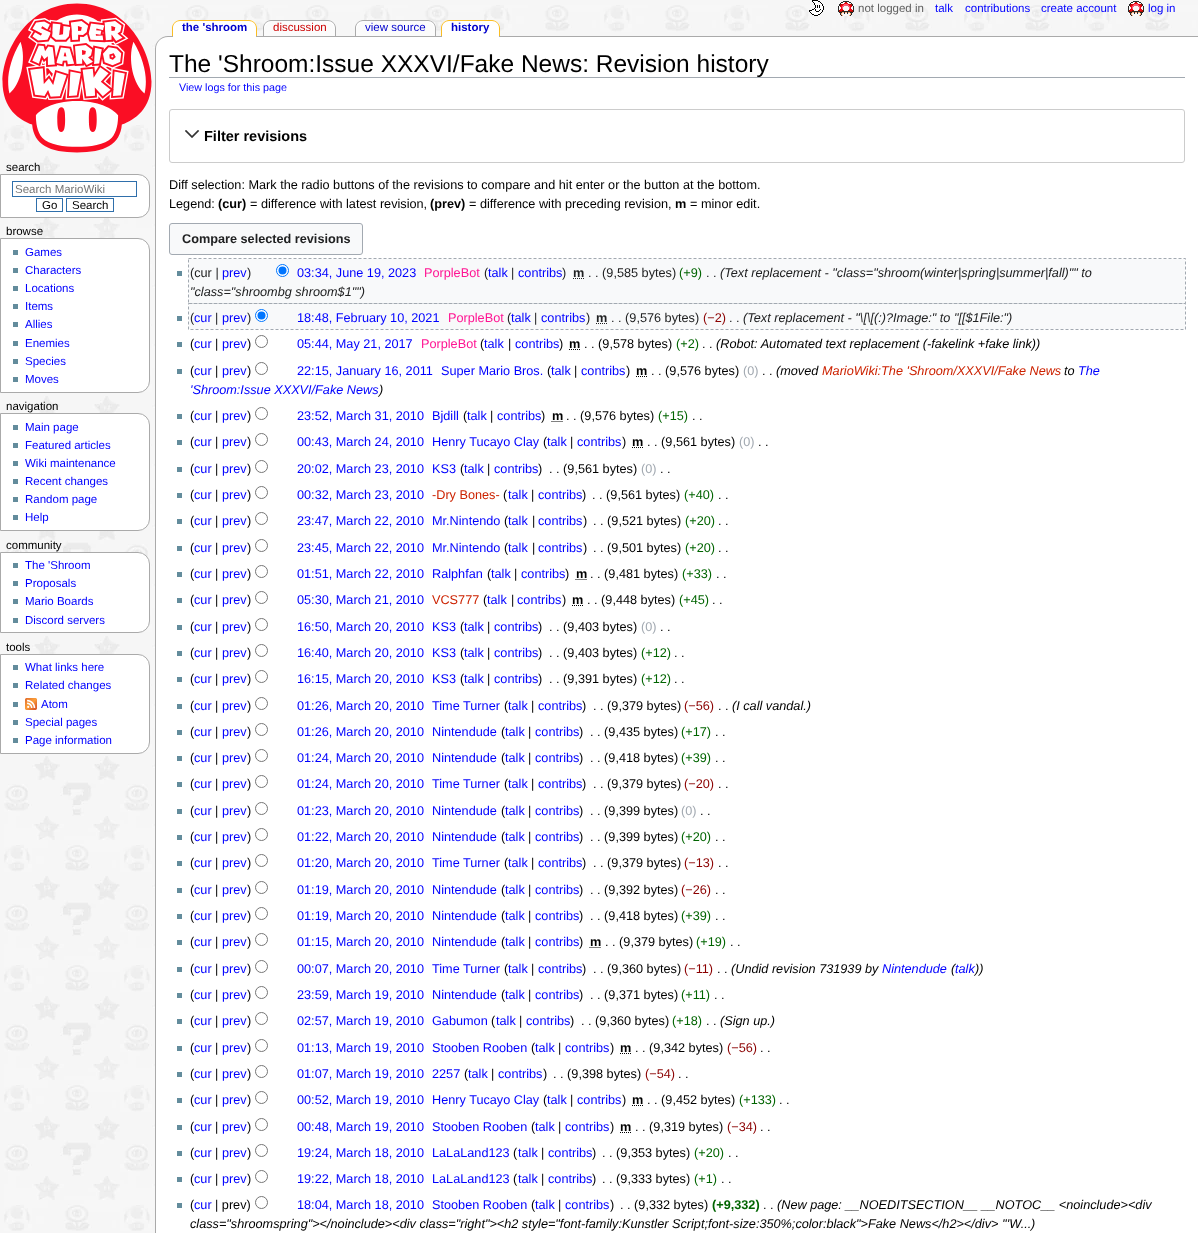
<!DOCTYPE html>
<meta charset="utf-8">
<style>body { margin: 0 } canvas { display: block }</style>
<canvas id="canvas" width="1198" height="1233"></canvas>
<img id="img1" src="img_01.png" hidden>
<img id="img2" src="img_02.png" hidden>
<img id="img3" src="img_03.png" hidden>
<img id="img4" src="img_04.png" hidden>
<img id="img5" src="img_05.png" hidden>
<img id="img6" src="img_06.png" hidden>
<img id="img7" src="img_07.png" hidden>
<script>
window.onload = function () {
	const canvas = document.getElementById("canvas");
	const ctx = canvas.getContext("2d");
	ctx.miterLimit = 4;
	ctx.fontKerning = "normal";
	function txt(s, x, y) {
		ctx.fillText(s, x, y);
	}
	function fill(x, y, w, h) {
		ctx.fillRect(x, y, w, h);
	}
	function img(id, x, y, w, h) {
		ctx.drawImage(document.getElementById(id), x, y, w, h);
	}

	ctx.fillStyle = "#F6F6F6";
	fill(0, 0, 1198, 1233);
	img("img1", 4, 5, 1194, 1226);
	img("img2", 2, 3, 150, 150);
	img("img3", 809, 0, 15, 16);
	img("img4", 838, 1, 16, 15);
	img("img5", 1128, 1, 16, 15);
	ctx.fillStyle = "#FFFFFF";
	ctx.beginPath();
	ctx.roundRect(172, 20, 85, 25, [8, 8, 0, 0]);
	ctx.fill();
	ctx.fillStyle = "#FABD23";
	ctx.beginPath();
	ctx.moveTo(180, 20);
	ctx.lineTo(249, 20);
	ctx.bezierCurveTo(253, 20, 257, 24, 257, 28);
	ctx.lineTo(257, 45);
	ctx.lineTo(172, 45);
	ctx.lineTo(172, 28);
	ctx.bezierCurveTo(172, 24, 176, 20, 180, 20);
	ctx.closePath();
	ctx.moveTo(180, 21);
	ctx.lineTo(249, 21);
	ctx.bezierCurveTo(253, 21, 256, 24, 256, 28);
	ctx.lineTo(256, 45);
	ctx.lineTo(173, 45);
	ctx.lineTo(173, 28);
	ctx.bezierCurveTo(173, 24, 176, 21, 180, 21);
	ctx.closePath();
	ctx.fill("evenodd");
	ctx.fillStyle = "#FFFFFF";
	ctx.beginPath();
	ctx.roundRect(263, 20, 73, 25, [8, 8, 0, 0]);
	ctx.fill();
	ctx.fillStyle = "#AAAAAA";
	ctx.beginPath();
	ctx.moveTo(271, 20);
	ctx.lineTo(328, 20);
	ctx.bezierCurveTo(332, 20, 336, 24, 336, 28);
	ctx.lineTo(336, 45);
	ctx.lineTo(263, 45);
	ctx.lineTo(263, 28);
	ctx.bezierCurveTo(263, 24, 267, 20, 271, 20);
	ctx.closePath();
	ctx.moveTo(271, 21);
	ctx.lineTo(328, 21);
	ctx.bezierCurveTo(332, 21, 335, 24, 335, 28);
	ctx.lineTo(335, 45);
	ctx.lineTo(264, 45);
	ctx.lineTo(264, 28);
	ctx.bezierCurveTo(264, 24, 267, 21, 271, 21);
	ctx.closePath();
	ctx.fill("evenodd");
	ctx.fillStyle = "#FBFBFB";
	ctx.beginPath();
	ctx.roundRect(264, 21, 71, 16, [11, 11, 0, 0]);
	ctx.fill();
	ctx.fillStyle = "#FFFFFF";
	ctx.beginPath();
	ctx.roundRect(355, 20, 81, 25, [8, 8, 0, 0]);
	ctx.fill();
	ctx.fillStyle = "#AAAAAA";
	ctx.beginPath();
	ctx.moveTo(363, 20);
	ctx.lineTo(428, 20);
	ctx.bezierCurveTo(432, 20, 436, 24, 436, 28);
	ctx.lineTo(436, 45);
	ctx.lineTo(355, 45);
	ctx.lineTo(355, 28);
	ctx.bezierCurveTo(355, 24, 359, 20, 363, 20);
	ctx.closePath();
	ctx.moveTo(363, 21);
	ctx.lineTo(428, 21);
	ctx.bezierCurveTo(432, 21, 435, 24, 435, 28);
	ctx.lineTo(435, 45);
	ctx.lineTo(356, 45);
	ctx.lineTo(356, 28);
	ctx.bezierCurveTo(356, 24, 359, 21, 363, 21);
	ctx.closePath();
	ctx.fill("evenodd");
	ctx.fillStyle = "#FBFBFB";
	ctx.beginPath();
	ctx.roundRect(356, 21, 79, 16, [11, 11, 0, 0]);
	ctx.fill();
	ctx.fillStyle = "#FFFFFF";
	ctx.beginPath();
	ctx.roundRect(441, 20, 59, 25, [8, 8, 0, 0]);
	ctx.fill();
	ctx.fillStyle = "#FABD23";
	ctx.beginPath();
	ctx.moveTo(449, 20);
	ctx.lineTo(492, 20);
	ctx.bezierCurveTo(496, 20, 500, 24, 500, 28);
	ctx.lineTo(500, 45);
	ctx.lineTo(441, 45);
	ctx.lineTo(441, 28);
	ctx.bezierCurveTo(441, 24, 445, 20, 449, 20);
	ctx.closePath();
	ctx.moveTo(449, 21);
	ctx.lineTo(492, 21);
	ctx.bezierCurveTo(496, 21, 499, 24, 499, 28);
	ctx.lineTo(499, 45);
	ctx.lineTo(442, 45);
	ctx.lineTo(442, 28);
	ctx.bezierCurveTo(442, 24, 445, 21, 449, 21);
	ctx.closePath();
	ctx.fill("evenodd");
	ctx.fillStyle = "#FFFFFF";
	ctx.beginPath();
	ctx.moveTo(168, 36);
	ctx.lineTo(1198, 36);
	ctx.lineTo(1198, 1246);
	ctx.lineTo(168, 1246);
	ctx.bezierCurveTo(161, 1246, 155, 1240, 155, 1233);
	ctx.lineTo(155, 49);
	ctx.bezierCurveTo(155, 42, 161, 36, 168, 36);
	ctx.closePath();
	ctx.fill();
	ctx.fillStyle = "#AAAAAA";
	ctx.beginPath();
	ctx.moveTo(168, 36);
	ctx.lineTo(1198, 36);
	ctx.lineTo(1198, 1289);
	ctx.lineTo(168, 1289);
	ctx.bezierCurveTo(161, 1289, 155, 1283, 155, 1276);
	ctx.lineTo(155, 49);
	ctx.bezierCurveTo(155, 42, 161, 36, 168, 36);
	ctx.closePath();
	ctx.moveTo(168, 37);
	ctx.lineTo(1198, 37);
	ctx.lineTo(1198, 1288);
	ctx.lineTo(168, 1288);
	ctx.bezierCurveTo(161, 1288, 156, 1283, 156, 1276);
	ctx.lineTo(156, 49);
	ctx.bezierCurveTo(156, 42, 161, 37, 168, 37);
	ctx.closePath();
	ctx.fill("evenodd");
	ctx.fillStyle = "#FFFFFF";
	ctx.beginPath();
	ctx.roundRect(173, 21, 83, 16, [11, 11, 0, 0]);
	ctx.fill();
	ctx.beginPath();
	ctx.roundRect(442, 21, 57, 16, [11, 11, 0, 0]);
	ctx.fill();
	ctx.beginPath();
	ctx.roundRect(0.5, 174.5, 149, 43, [0, 11.5, 11.5, 0]);
	ctx.fill();
	ctx.strokeStyle = "#AAAAAA";
	ctx.stroke();
	ctx.strokeStyle = "#2F6FAB";
	ctx.strokeRect(12.5, 181.5, 124, 15);
	ctx.strokeRect(36.5, 198.5, 26, 13);
	ctx.strokeRect(66.5, 198.5, 47, 13);
	ctx.beginPath();
	ctx.roundRect(0.5, 238.5, 149, 154, [0, 11.5, 11.5, 0]);
	ctx.fill();
	ctx.strokeStyle = "#AAAAAA";
	ctx.stroke();
	ctx.fillStyle = "#638C9C";
	fill(13, 250, 5, 5);
	fill(13, 268, 5, 5);
	fill(13, 286, 5, 5);
	fill(13, 304, 5, 5);
	fill(13, 322, 5, 5);
	fill(13, 341, 5, 5);
	fill(13, 359, 5, 5);
	fill(13, 377, 5, 5);
	ctx.fillStyle = "#FFFFFF";
	ctx.beginPath();
	ctx.roundRect(0.5, 413.5, 149, 117, [0, 11.5, 11.5, 0]);
	ctx.fill();
	ctx.stroke();
	ctx.fillStyle = "#638C9C";
	fill(13, 425, 5, 5);
	fill(13, 443, 5, 5);
	fill(13, 461, 5, 5);
	fill(13, 479, 5, 5);
	fill(13, 497, 5, 5);
	fill(13, 515, 5, 5);
	ctx.fillStyle = "#FFFFFF";
	ctx.beginPath();
	ctx.roundRect(0.5, 552.5, 149, 80, [0, 11.5, 11.5, 0]);
	ctx.fill();
	ctx.stroke();
	ctx.fillStyle = "#638C9C";
	fill(13, 563, 5, 5);
	fill(13, 581, 5, 5);
	fill(13, 599, 5, 5);
	fill(13, 618, 5, 5);
	ctx.fillStyle = "#FFFFFF";
	ctx.beginPath();
	ctx.roundRect(0.5, 654.5, 149, 99, [0, 11.5, 11.5, 0]);
	ctx.fill();
	ctx.stroke();
	ctx.fillStyle = "#638C9C";
	fill(13, 665, 5, 5);
	fill(13, 683, 5, 5);
	fill(13, 702, 5, 5);
	img("img6", 25, 698, 12, 12);
	fill(13, 720, 5, 5);
	fill(13, 738, 5, 5);
	ctx.fillStyle = "#A2A9B1";
	fill(169, 77, 1016, 1);
	ctx.beginPath();
	ctx.roundRect(169.5, 109.5, 1015, 53, 2.5);
	ctx.strokeStyle = "#CCCCCC";
	ctx.stroke();
	img("img7", 185, 130, 15, 8);
	ctx.fillStyle = "#F8F9FA";
	ctx.beginPath();
	ctx.roundRect(169.5, 223.5, 193, 31, 2.5);
	ctx.fill();
	ctx.strokeStyle = "#A2A9B1";
	ctx.stroke();
	fill(189, 259, 996, 44);
	ctx.fillStyle = "#638C9C";
	fill(177, 271, 5, 5);
	ctx.fillStyle = "#FFFFFF";
	ctx.beginPath();
	ctx.arc(282.5, 270.5, 6, 0, Math.PI * 2);
	ctx.fill();
	ctx.strokeStyle = "#0075FF";
	ctx.stroke();
	ctx.fillStyle = "#0075FF";
	ctx.beginPath();
	ctx.arc(282.5, 270.5, 4, 0, Math.PI * 2);
	ctx.fill();
	ctx.beginPath();
	ctx.moveTo(573, 278.5);
	ctx.lineTo(584, 278.5);
	ctx.strokeStyle = "#202122";
	ctx.setLineDash([1, 1]);
	ctx.stroke();
	ctx.fillStyle = "#F8F9FA";
	fill(189, 304, 996, 25);
	ctx.fillStyle = "#638C9C";
	fill(177, 316, 5, 5);
	ctx.fillStyle = "#FFFFFF";
	ctx.beginPath();
	ctx.arc(261.5, 315.5, 6, 0, Math.PI * 2);
	ctx.fill();
	ctx.strokeStyle = "#0075FF";
	ctx.setLineDash([]);
	ctx.stroke();
	ctx.fillStyle = "#0075FF";
	ctx.beginPath();
	ctx.arc(261.5, 315.5, 4, 0, Math.PI * 2);
	ctx.fill();
	ctx.beginPath();
	ctx.moveTo(596, 323.5);
	ctx.lineTo(607.5, 323.5);
	ctx.strokeStyle = "#202122";
	ctx.setLineDash([1, 1]);
	ctx.stroke();
	ctx.fillStyle = "#638C9C";
	fill(177, 342, 5, 5);
	ctx.beginPath();
	ctx.arc(261.5, 341.5, 6, 0, Math.PI * 2);
	ctx.strokeStyle = "#767676";
	ctx.setLineDash([]);
	ctx.stroke();
	ctx.beginPath();
	ctx.moveTo(569, 349.5);
	ctx.lineTo(580.5, 349.5);
	ctx.strokeStyle = "#000000";
	ctx.setLineDash([1, 1]);
	ctx.stroke();
	fill(177, 369, 5, 5);
	ctx.beginPath();
	ctx.arc(261.5, 368.5, 6, 0, Math.PI * 2);
	ctx.strokeStyle = "#767676";
	ctx.setLineDash([]);
	ctx.stroke();
	ctx.beginPath();
	ctx.moveTo(636, 376.5);
	ctx.lineTo(647.5, 376.5);
	ctx.strokeStyle = "#000000";
	ctx.setLineDash([1, 1]);
	ctx.stroke();
	fill(177, 414, 5, 5);
	ctx.beginPath();
	ctx.arc(261.5, 413.5, 6, 0, Math.PI * 2);
	ctx.strokeStyle = "#767676";
	ctx.setLineDash([]);
	ctx.stroke();
	ctx.beginPath();
	ctx.moveTo(551.5, 421.5);
	ctx.lineTo(563, 421.5);
	ctx.strokeStyle = "#000000";
	ctx.setLineDash([1, 1]);
	ctx.stroke();
	fill(177, 440, 5, 5);
	ctx.beginPath();
	ctx.arc(261.5, 439.5, 6, 0, Math.PI * 2);
	ctx.strokeStyle = "#767676";
	ctx.setLineDash([]);
	ctx.stroke();
	ctx.beginPath();
	ctx.moveTo(632, 447.5);
	ctx.lineTo(643.5, 447.5);
	ctx.strokeStyle = "#000000";
	ctx.setLineDash([1, 1]);
	ctx.stroke();
	fill(177, 467, 5, 5);
	ctx.beginPath();
	ctx.arc(261.5, 466.5, 6, 0, Math.PI * 2);
	ctx.strokeStyle = "#767676";
	ctx.setLineDash([]);
	ctx.stroke();
	fill(177, 493, 5, 5);
	ctx.beginPath();
	ctx.arc(261.5, 492.5, 6, 0, Math.PI * 2);
	ctx.stroke();
	fill(177, 519, 5, 5);
	ctx.beginPath();
	ctx.arc(261.5, 518.5, 6, 0, Math.PI * 2);
	ctx.stroke();
	fill(177, 546, 5, 5);
	ctx.beginPath();
	ctx.arc(261.5, 545.5, 6, 0, Math.PI * 2);
	ctx.stroke();
	fill(177, 572, 5, 5);
	ctx.beginPath();
	ctx.arc(261.5, 571.5, 6, 0, Math.PI * 2);
	ctx.stroke();
	ctx.beginPath();
	ctx.moveTo(575.5, 579.5);
	ctx.lineTo(587, 579.5);
	ctx.strokeStyle = "#000000";
	ctx.setLineDash([1, 1]);
	ctx.stroke();
	fill(177, 598, 5, 5);
	ctx.beginPath();
	ctx.arc(261.5, 597.5, 6, 0, Math.PI * 2);
	ctx.strokeStyle = "#767676";
	ctx.setLineDash([]);
	ctx.stroke();
	ctx.beginPath();
	ctx.moveTo(572, 605.5);
	ctx.lineTo(583.5, 605.5);
	ctx.strokeStyle = "#000000";
	ctx.setLineDash([1, 1]);
	ctx.stroke();
	fill(177, 625, 5, 5);
	ctx.beginPath();
	ctx.arc(261.5, 624.5, 6, 0, Math.PI * 2);
	ctx.strokeStyle = "#767676";
	ctx.setLineDash([]);
	ctx.stroke();
	fill(177, 651, 5, 5);
	ctx.beginPath();
	ctx.arc(261.5, 650.5, 6, 0, Math.PI * 2);
	ctx.stroke();
	fill(177, 677, 5, 5);
	ctx.beginPath();
	ctx.arc(261.5, 676.5, 6, 0, Math.PI * 2);
	ctx.stroke();
	fill(177, 704, 5, 5);
	ctx.beginPath();
	ctx.arc(261.5, 703.5, 6, 0, Math.PI * 2);
	ctx.stroke();
	fill(177, 730, 5, 5);
	ctx.beginPath();
	ctx.arc(261.5, 729.5, 6, 0, Math.PI * 2);
	ctx.stroke();
	fill(177, 756, 5, 5);
	ctx.beginPath();
	ctx.arc(261.5, 755.5, 6, 0, Math.PI * 2);
	ctx.stroke();
	fill(177, 782, 5, 5);
	ctx.beginPath();
	ctx.arc(261.5, 781.5, 6, 0, Math.PI * 2);
	ctx.stroke();
	fill(177, 809, 5, 5);
	ctx.beginPath();
	ctx.arc(261.5, 808.5, 6, 0, Math.PI * 2);
	ctx.stroke();
	fill(177, 835, 5, 5);
	ctx.beginPath();
	ctx.arc(261.5, 834.5, 6, 0, Math.PI * 2);
	ctx.stroke();
	fill(177, 861, 5, 5);
	ctx.beginPath();
	ctx.arc(261.5, 860.5, 6, 0, Math.PI * 2);
	ctx.stroke();
	fill(177, 888, 5, 5);
	ctx.beginPath();
	ctx.arc(261.5, 887.5, 6, 0, Math.PI * 2);
	ctx.stroke();
	fill(177, 914, 5, 5);
	ctx.beginPath();
	ctx.arc(261.5, 913.5, 6, 0, Math.PI * 2);
	ctx.stroke();
	fill(177, 940, 5, 5);
	ctx.beginPath();
	ctx.arc(261.5, 939.5, 6, 0, Math.PI * 2);
	ctx.stroke();
	ctx.beginPath();
	ctx.moveTo(589.5, 947.5);
	ctx.lineTo(601, 947.5);
	ctx.strokeStyle = "#000000";
	ctx.setLineDash([1, 1]);
	ctx.stroke();
	fill(177, 967, 5, 5);
	ctx.beginPath();
	ctx.arc(261.5, 966.5, 6, 0, Math.PI * 2);
	ctx.strokeStyle = "#767676";
	ctx.setLineDash([]);
	ctx.stroke();
	fill(177, 993, 5, 5);
	ctx.beginPath();
	ctx.arc(261.5, 992.5, 6, 0, Math.PI * 2);
	ctx.stroke();
	fill(177, 1019, 5, 5);
	ctx.beginPath();
	ctx.arc(261.5, 1018.5, 6, 0, Math.PI * 2);
	ctx.stroke();
	fill(177, 1046, 5, 5);
	ctx.beginPath();
	ctx.arc(261.5, 1045.5, 6, 0, Math.PI * 2);
	ctx.stroke();
	ctx.beginPath();
	ctx.moveTo(620, 1053.5);
	ctx.lineTo(631.5, 1053.5);
	ctx.strokeStyle = "#000000";
	ctx.setLineDash([1, 1]);
	ctx.stroke();
	fill(177, 1072, 5, 5);
	ctx.beginPath();
	ctx.arc(261.5, 1071.5, 6, 0, Math.PI * 2);
	ctx.strokeStyle = "#767676";
	ctx.setLineDash([]);
	ctx.stroke();
	fill(177, 1098, 5, 5);
	ctx.beginPath();
	ctx.arc(261.5, 1097.5, 6, 0, Math.PI * 2);
	ctx.stroke();
	ctx.beginPath();
	ctx.moveTo(632, 1105.5);
	ctx.lineTo(643.5, 1105.5);
	ctx.strokeStyle = "#000000";
	ctx.setLineDash([1, 1]);
	ctx.stroke();
	fill(177, 1125, 5, 5);
	ctx.beginPath();
	ctx.arc(261.5, 1124.5, 6, 0, Math.PI * 2);
	ctx.strokeStyle = "#767676";
	ctx.setLineDash([]);
	ctx.stroke();
	ctx.beginPath();
	ctx.moveTo(620, 1132.5);
	ctx.lineTo(631.5, 1132.5);
	ctx.strokeStyle = "#000000";
	ctx.setLineDash([1, 1]);
	ctx.stroke();
	fill(177, 1151, 5, 5);
	ctx.beginPath();
	ctx.arc(261.5, 1150.5, 6, 0, Math.PI * 2);
	ctx.strokeStyle = "#767676";
	ctx.setLineDash([]);
	ctx.stroke();
	fill(177, 1177, 5, 5);
	ctx.beginPath();
	ctx.arc(261.5, 1176.5, 6, 0, Math.PI * 2);
	ctx.stroke();
	fill(177, 1203, 5, 5);
	ctx.beginPath();
	ctx.arc(261.5, 1202.5, 6, 0, Math.PI * 2);
	ctx.stroke();
	ctx.font = "11.5px Liberation Sans";
	ctx.fillStyle = "#606060";
	txt("not logged in", 858, 12);
	ctx.fillStyle = "#0000FF";
	txt("talk", 935, 12);
	txt("contributions", 965, 12);
	txt("create account", 1041, 12);
	txt("log in", 1148, 12);
	ctx.font = "bold 11.5px Liberation Sans";
	ctx.fillStyle = "#0000CC";
	txt("the 'shroom", 182, 31);
	ctx.font = "11.5px Liberation Sans";
	ctx.fillStyle = "#CC0000";
	txt("discussion", 273, 31);
	ctx.fillStyle = "#0000CC";
	txt("view source", 365, 31);
	ctx.font = "bold 11.5px Liberation Sans";
	txt("history", 451, 31);
	ctx.font = "11.5px Liberation Sans";
	ctx.fillStyle = "#000000";
	txt("search", 6, 171);
	ctx.fillStyle = "#757575";
	txt("Search MarioWiki", 15, 193);
	ctx.fillStyle = "#000000";
	txt("Go", 42, 209);
	txt("Search", 72, 209);
	txt("browse", 6, 235);
	ctx.fillStyle = "#0000FF";
	txt("Games", 25, 256);
	txt("Characters", 25, 274);
	txt("Locations", 25, 292);
	txt("Items", 25, 310);
	txt("Allies", 25, 328);
	txt("Enemies", 25, 347);
	txt("Species", 25, 365);
	txt("Moves", 25, 383);
	ctx.fillStyle = "#000000";
	txt("navigation", 6, 410);
	ctx.fillStyle = "#0000FF";
	txt("Main page", 25, 431);
	txt("Featured articles", 25, 449);
	txt("Wiki maintenance", 25, 467);
	txt("Recent changes", 25, 485);
	txt("Random page", 25, 503);
	txt("Help", 25, 521);
	ctx.fillStyle = "#000000";
	txt("community", 6, 549);
	ctx.fillStyle = "#0000FF";
	txt("The 'Shroom", 25, 569);
	txt("Proposals", 25, 587);
	txt("Mario Boards", 25, 605);
	txt("Discord servers", 25, 624);
	ctx.fillStyle = "#000000";
	txt("tools", 6, 651);
	ctx.fillStyle = "#0000FF";
	txt("What links here", 25, 671);
	txt("Related changes", 25, 689);
	txt("Atom", 41, 708);
	txt("Special pages", 25, 726);
	txt("Page information", 25, 744);
	ctx.font = "24.5px Liberation Sans";
	ctx.fillStyle = "#000000";
	txt("The 'Shroom:Issue XXXVI/Fake News: Revision history", 169, 72);
	ctx.font = "10.75px Liberation Sans";
	ctx.fillStyle = "#0000FF";
	txt("View logs for this page", 179, 91);
	ctx.font = "bold 14.5px Liberation Sans";
	ctx.fillStyle = "#000000";
	txt("Filter revisions", 204, 141);
	ctx.font = "12.7px Liberation Sans";
	txt("Diff selection: Mark the radio buttons of the revisions to compare and hit enter or the button at the bottom.", 169, 189);
	txt("Legend:", 169, 208);
	ctx.font = "bold 12.7px Liberation Sans";
	txt("(cur)", 218, 208);
	ctx.font = "12.7px Liberation Sans";
	txt("= difference with latest revision,", 250, 208);
	ctx.font = "bold 12.7px Liberation Sans";
	txt("(prev)", 430, 208);
	ctx.font = "12.7px Liberation Sans";
	txt("= difference with preceding revision,", 469, 208);
	ctx.font = "bold 12.7px Liberation Sans";
	txt("m", 675, 208);
	ctx.font = "12.7px Liberation Sans";
	txt("= minor edit.", 690, 208);
	ctx.font = "bold 12.7px Liberation Sans";
	ctx.fillStyle = "#202122";
	txt("Compare selected revisions", 182, 243);
	ctx.font = "12.7px Liberation Sans";
	txt("(cur |", 190, 277);
	ctx.fillStyle = "#0000FF";
	txt("prev", 222, 277);
	ctx.fillStyle = "#202122";
	txt(")", 247, 277);
	ctx.fillStyle = "#0000FF";
	txt("03:34, June 19, 2023", 297, 277);
	ctx.fillStyle = "#FF1493";
	txt("PorpleBot", 424, 277);
	ctx.fillStyle = "#202122";
	txt("(", 484, 277);
	ctx.fillStyle = "#0000FF";
	txt("talk", 488, 277);
	ctx.fillStyle = "#202122";
	txt("|", 511, 277);
	ctx.fillStyle = "#0000FF";
	txt("contribs", 518, 277);
	ctx.fillStyle = "#202122";
	txt(")", 562, 277);
	ctx.font = "bold 12.7px Liberation Sans";
	txt("m", 573, 277);
	ctx.font = "12.7px Liberation Sans";
	txt(". . (9,585 bytes)", 588, 277);
	ctx.fillStyle = "#006400";
	txt("(+9)", 679, 277);
	ctx.fillStyle = "#202122";
	txt(". .", 706, 277);
	ctx.font = "italic 12.7px Liberation Sans";
	txt("(Text replacement - \"class=\"shroom(winter|spring|summer|fall)\"\" to", 720, 277);
	txt("\"class=\"shroombg shroom$1\"\")", 190, 296);
	ctx.beginPath();
	ctx.moveTo(188.5, 258.5);
	ctx.lineTo(1185.5, 258.5);
	ctx.lineTo(1185.5, 303.5);
	ctx.lineTo(188.5, 303.5);
	ctx.closePath();
	ctx.strokeStyle = "#A2A9B1";
	ctx.setLineDash([3, 2]);
	ctx.stroke();
	ctx.font = "12.7px Liberation Sans";
	txt("(", 190, 322);
	ctx.fillStyle = "#0000FF";
	txt("cur", 194, 322);
	ctx.fillStyle = "#202122";
	txt("|", 215, 322);
	ctx.fillStyle = "#0000FF";
	txt("prev", 222, 322);
	ctx.fillStyle = "#202122";
	txt(")", 247, 322);
	ctx.fillStyle = "#0000FF";
	txt("18:48, February 10, 2021", 297, 322);
	ctx.fillStyle = "#FF1493";
	txt("PorpleBot", 448, 322);
	ctx.fillStyle = "#202122";
	txt("(", 507, 322);
	ctx.fillStyle = "#0000FF";
	txt("talk", 511, 322);
	ctx.fillStyle = "#202122";
	txt("|", 534, 322);
	ctx.fillStyle = "#0000FF";
	txt("contribs", 541, 322);
	ctx.fillStyle = "#202122";
	txt(")", 586, 322);
	ctx.font = "bold 12.7px Liberation Sans";
	txt("m", 596, 322);
	ctx.font = "12.7px Liberation Sans";
	txt(". . (9,576 bytes)", 611, 322);
	ctx.fillStyle = "#8B0000";
	txt("(−2)", 703, 322);
	ctx.fillStyle = "#202122";
	txt(". .", 729, 322);
	ctx.font = "italic 12.7px Liberation Sans";
	txt("(Text replacement - \"\\[\\[(:)?Image:\" to \"[[$1File:\")", 743, 322);
	ctx.beginPath();
	ctx.moveTo(188.5, 303.5);
	ctx.lineTo(1185.5, 303.5);
	ctx.lineTo(1185.5, 329.5);
	ctx.lineTo(188.5, 329.5);
	ctx.closePath();
	ctx.stroke();
	ctx.font = "12.7px Liberation Sans";
	ctx.fillStyle = "#000000";
	txt("(", 190, 348);
	ctx.fillStyle = "#0000FF";
	txt("cur", 194, 348);
	ctx.fillStyle = "#000000";
	txt("|", 215, 348);
	ctx.fillStyle = "#0000FF";
	txt("prev", 222, 348);
	ctx.fillStyle = "#000000";
	txt(")", 247, 348);
	ctx.fillStyle = "#0000FF";
	txt("05:44, May 21, 2017", 297, 348);
	ctx.fillStyle = "#FF1493";
	txt("PorpleBot", 421, 348);
	ctx.fillStyle = "#000000";
	txt("(", 480, 348);
	ctx.fillStyle = "#0000FF";
	txt("talk", 484, 348);
	ctx.fillStyle = "#000000";
	txt("|", 508, 348);
	ctx.fillStyle = "#0000FF";
	txt("contribs", 515, 348);
	ctx.fillStyle = "#000000";
	txt(")", 559, 348);
	ctx.font = "bold 12.7px Liberation Sans";
	txt("m", 569, 348);
	ctx.font = "12.7px Liberation Sans";
	txt(". . (9,578 bytes)", 584, 348);
	ctx.fillStyle = "#006400";
	txt("(+2)", 676, 348);
	ctx.fillStyle = "#000000";
	txt(". .", 702, 348);
	ctx.font = "italic 12.7px Liberation Sans";
	txt("(Robot: Automated text replacement (-fakelink +fake link))", 716, 348);
	ctx.font = "12.7px Liberation Sans";
	txt("(", 190, 375);
	ctx.fillStyle = "#0000FF";
	txt("cur", 194, 375);
	ctx.fillStyle = "#000000";
	txt("|", 215, 375);
	ctx.fillStyle = "#0000FF";
	txt("prev", 222, 375);
	ctx.fillStyle = "#000000";
	txt(")", 247, 375);
	ctx.fillStyle = "#0000FF";
	txt("22:15, January 16, 2011", 297, 375);
	txt("Super Mario Bros.", 441, 375);
	ctx.fillStyle = "#000000";
	txt("(", 547, 375);
	ctx.fillStyle = "#0000FF";
	txt("talk", 551, 375);
	ctx.fillStyle = "#000000";
	txt("|", 574, 375);
	ctx.fillStyle = "#0000FF";
	txt("contribs", 581, 375);
	ctx.fillStyle = "#000000";
	txt(")", 626, 375);
	ctx.font = "bold 12.7px Liberation Sans";
	txt("m", 636, 375);
	ctx.font = "12.7px Liberation Sans";
	txt(". . (9,576 bytes)", 651, 375);
	ctx.fillStyle = "#A2A9B1";
	txt("(0)", 743, 375);
	ctx.fillStyle = "#000000";
	txt(". .", 762, 375);
	ctx.font = "italic 12.7px Liberation Sans";
	txt("(moved", 776, 375);
	ctx.fillStyle = "#CC2200";
	txt("MarioWiki:The 'Shroom/XXXVI/Fake News", 822, 375);
	ctx.fillStyle = "#000000";
	txt("to", 1064, 375);
	ctx.fillStyle = "#0000FF";
	txt("The", 1078, 375);
	txt("'Shroom:Issue XXXVI/Fake News", 190, 394);
	ctx.fillStyle = "#000000";
	txt(")", 379, 394);
	ctx.font = "12.7px Liberation Sans";
	txt("(", 190, 420);
	ctx.fillStyle = "#0000FF";
	txt("cur", 194, 420);
	ctx.fillStyle = "#000000";
	txt("|", 215, 420);
	ctx.fillStyle = "#0000FF";
	txt("prev", 222, 420);
	ctx.fillStyle = "#000000";
	txt(")", 247, 420);
	ctx.fillStyle = "#0000FF";
	txt("23:52, March 31, 2010", 297, 420);
	txt("Bjdill", 432, 420);
	ctx.fillStyle = "#000000";
	txt("(", 463, 420);
	ctx.fillStyle = "#0000FF";
	txt("talk", 467, 420);
	ctx.fillStyle = "#000000";
	txt("|", 490, 420);
	ctx.fillStyle = "#0000FF";
	txt("contribs", 497, 420);
	ctx.fillStyle = "#000000";
	txt(")", 541, 420);
	ctx.font = "bold 12.7px Liberation Sans";
	txt("m", 552, 420);
	ctx.font = "12.7px Liberation Sans";
	txt(". . (9,576 bytes)", 566, 420);
	ctx.fillStyle = "#006400";
	txt("(+15)", 658, 420);
	ctx.fillStyle = "#000000";
	txt(". .", 692, 420);
	txt("(", 190, 446);
	ctx.fillStyle = "#0000FF";
	txt("cur", 194, 446);
	ctx.fillStyle = "#000000";
	txt("|", 215, 446);
	ctx.fillStyle = "#0000FF";
	txt("prev", 222, 446);
	ctx.fillStyle = "#000000";
	txt(")", 247, 446);
	ctx.fillStyle = "#0000FF";
	txt("00:43, March 24, 2010", 297, 446);
	txt("Henry Tucayo Clay", 432, 446);
	ctx.fillStyle = "#000000";
	txt("(", 543, 446);
	ctx.fillStyle = "#0000FF";
	txt("talk", 547, 446);
	ctx.fillStyle = "#000000";
	txt("|", 570, 446);
	ctx.fillStyle = "#0000FF";
	txt("contribs", 577, 446);
	ctx.fillStyle = "#000000";
	txt(")", 622, 446);
	ctx.font = "bold 12.7px Liberation Sans";
	txt("m", 632, 446);
	ctx.font = "12.7px Liberation Sans";
	txt(". . (9,561 bytes)", 647, 446);
	ctx.fillStyle = "#A2A9B1";
	txt("(0)", 739, 446);
	ctx.fillStyle = "#000000";
	txt(". .", 758, 446);
	txt("(", 190, 473);
	ctx.fillStyle = "#0000FF";
	txt("cur", 194, 473);
	ctx.fillStyle = "#000000";
	txt("|", 215, 473);
	ctx.fillStyle = "#0000FF";
	txt("prev", 222, 473);
	ctx.fillStyle = "#000000";
	txt(")", 247, 473);
	ctx.fillStyle = "#0000FF";
	txt("20:02, March 23, 2010", 297, 473);
	txt("KS3", 432, 473);
	ctx.fillStyle = "#000000";
	txt("(", 460, 473);
	ctx.fillStyle = "#0000FF";
	txt("talk", 464, 473);
	ctx.fillStyle = "#000000";
	txt("|", 487, 473);
	ctx.fillStyle = "#0000FF";
	txt("contribs", 494, 473);
	ctx.fillStyle = "#000000";
	txt(")", 538, 473);
	txt(". . (9,561 bytes)", 549, 473);
	ctx.fillStyle = "#A2A9B1";
	txt("(0)", 641, 473);
	ctx.fillStyle = "#000000";
	txt(". .", 660, 473);
	txt("(", 190, 499);
	ctx.fillStyle = "#0000FF";
	txt("cur", 194, 499);
	ctx.fillStyle = "#000000";
	txt("|", 215, 499);
	ctx.fillStyle = "#0000FF";
	txt("prev", 222, 499);
	ctx.fillStyle = "#000000";
	txt(")", 247, 499);
	ctx.fillStyle = "#0000FF";
	txt("00:32, March 23, 2010", 297, 499);
	ctx.fillStyle = "#CC2200";
	txt("-Dry Bones-", 432, 499);
	ctx.fillStyle = "#000000";
	txt("(", 503, 499);
	ctx.fillStyle = "#0000FF";
	txt("talk", 508, 499);
	ctx.fillStyle = "#000000";
	txt("|", 531, 499);
	ctx.fillStyle = "#0000FF";
	txt("contribs", 538, 499);
	ctx.fillStyle = "#000000";
	txt(")", 582, 499);
	txt(". . (9,561 bytes)", 592, 499);
	ctx.fillStyle = "#006400";
	txt("(+40)", 684, 499);
	ctx.fillStyle = "#000000";
	txt(". .", 718, 499);
	txt("(", 190, 525);
	ctx.fillStyle = "#0000FF";
	txt("cur", 194, 525);
	ctx.fillStyle = "#000000";
	txt("|", 215, 525);
	ctx.fillStyle = "#0000FF";
	txt("prev", 222, 525);
	ctx.fillStyle = "#000000";
	txt(")", 247, 525);
	ctx.fillStyle = "#0000FF";
	txt("23:47, March 22, 2010", 297, 525);
	txt("Mr.Nintendo", 432, 525);
	ctx.fillStyle = "#000000";
	txt("(", 504, 525);
	ctx.fillStyle = "#0000FF";
	txt("talk", 508, 525);
	ctx.fillStyle = "#000000";
	txt("|", 532, 525);
	ctx.fillStyle = "#0000FF";
	txt("contribs", 538, 525);
	ctx.fillStyle = "#000000";
	txt(")", 583, 525);
	txt(". . (9,521 bytes)", 593, 525);
	ctx.fillStyle = "#006400";
	txt("(+20)", 685, 525);
	ctx.fillStyle = "#000000";
	txt(". .", 718, 525);
	txt("(", 190, 552);
	ctx.fillStyle = "#0000FF";
	txt("cur", 194, 552);
	ctx.fillStyle = "#000000";
	txt("|", 215, 552);
	ctx.fillStyle = "#0000FF";
	txt("prev", 222, 552);
	ctx.fillStyle = "#000000";
	txt(")", 247, 552);
	ctx.fillStyle = "#0000FF";
	txt("23:45, March 22, 2010", 297, 552);
	txt("Mr.Nintendo", 432, 552);
	ctx.fillStyle = "#000000";
	txt("(", 504, 552);
	ctx.fillStyle = "#0000FF";
	txt("talk", 508, 552);
	ctx.fillStyle = "#000000";
	txt("|", 532, 552);
	ctx.fillStyle = "#0000FF";
	txt("contribs", 538, 552);
	ctx.fillStyle = "#000000";
	txt(")", 583, 552);
	txt(". . (9,501 bytes)", 593, 552);
	ctx.fillStyle = "#006400";
	txt("(+20)", 685, 552);
	ctx.fillStyle = "#000000";
	txt(". .", 718, 552);
	txt("(", 190, 578);
	ctx.fillStyle = "#0000FF";
	txt("cur", 194, 578);
	ctx.fillStyle = "#000000";
	txt("|", 215, 578);
	ctx.fillStyle = "#0000FF";
	txt("prev", 222, 578);
	ctx.fillStyle = "#000000";
	txt(")", 247, 578);
	ctx.fillStyle = "#0000FF";
	txt("01:51, March 22, 2010", 297, 578);
	txt("Ralphfan", 432, 578);
	ctx.fillStyle = "#000000";
	txt("(", 487, 578);
	ctx.fillStyle = "#0000FF";
	txt("talk", 491, 578);
	ctx.fillStyle = "#000000";
	txt("|", 514, 578);
	ctx.fillStyle = "#0000FF";
	txt("contribs", 521, 578);
	ctx.fillStyle = "#000000";
	txt(")", 565, 578);
	ctx.font = "bold 12.7px Liberation Sans";
	txt("m", 576, 578);
	ctx.font = "12.7px Liberation Sans";
	txt(". . (9,481 bytes)", 590, 578);
	ctx.fillStyle = "#006400";
	txt("(+33)", 682, 578);
	ctx.fillStyle = "#000000";
	txt(". .", 716, 578);
	txt("(", 190, 604);
	ctx.fillStyle = "#0000FF";
	txt("cur", 194, 604);
	ctx.fillStyle = "#000000";
	txt("|", 215, 604);
	ctx.fillStyle = "#0000FF";
	txt("prev", 222, 604);
	ctx.fillStyle = "#000000";
	txt(")", 247, 604);
	ctx.fillStyle = "#0000FF";
	txt("05:30, March 21, 2010", 297, 604);
	ctx.fillStyle = "#CC2200";
	txt("VCS777", 432, 604);
	ctx.fillStyle = "#000000";
	txt("(", 483, 604);
	ctx.fillStyle = "#0000FF";
	txt("talk", 487, 604);
	ctx.fillStyle = "#000000";
	txt("|", 511, 604);
	ctx.fillStyle = "#0000FF";
	txt("contribs", 517, 604);
	ctx.fillStyle = "#000000";
	txt(")", 562, 604);
	ctx.font = "bold 12.7px Liberation Sans";
	txt("m", 572, 604);
	ctx.font = "12.7px Liberation Sans";
	txt(". . (9,448 bytes)", 587, 604);
	ctx.fillStyle = "#006400";
	txt("(+45)", 679, 604);
	ctx.fillStyle = "#000000";
	txt(". .", 712, 604);
	txt("(", 190, 631);
	ctx.fillStyle = "#0000FF";
	txt("cur", 194, 631);
	ctx.fillStyle = "#000000";
	txt("|", 215, 631);
	ctx.fillStyle = "#0000FF";
	txt("prev", 222, 631);
	ctx.fillStyle = "#000000";
	txt(")", 247, 631);
	ctx.fillStyle = "#0000FF";
	txt("16:50, March 20, 2010", 297, 631);
	txt("KS3", 432, 631);
	ctx.fillStyle = "#000000";
	txt("(", 460, 631);
	ctx.fillStyle = "#0000FF";
	txt("talk", 464, 631);
	ctx.fillStyle = "#000000";
	txt("|", 487, 631);
	ctx.fillStyle = "#0000FF";
	txt("contribs", 494, 631);
	ctx.fillStyle = "#000000";
	txt(")", 538, 631);
	txt(". . (9,403 bytes)", 549, 631);
	ctx.fillStyle = "#A2A9B1";
	txt("(0)", 641, 631);
	ctx.fillStyle = "#000000";
	txt(". .", 660, 631);
	txt("(", 190, 657);
	ctx.fillStyle = "#0000FF";
	txt("cur", 194, 657);
	ctx.fillStyle = "#000000";
	txt("|", 215, 657);
	ctx.fillStyle = "#0000FF";
	txt("prev", 222, 657);
	ctx.fillStyle = "#000000";
	txt(")", 247, 657);
	ctx.fillStyle = "#0000FF";
	txt("16:40, March 20, 2010", 297, 657);
	txt("KS3", 432, 657);
	ctx.fillStyle = "#000000";
	txt("(", 460, 657);
	ctx.fillStyle = "#0000FF";
	txt("talk", 464, 657);
	ctx.fillStyle = "#000000";
	txt("|", 487, 657);
	ctx.fillStyle = "#0000FF";
	txt("contribs", 494, 657);
	ctx.fillStyle = "#000000";
	txt(")", 538, 657);
	txt(". . (9,403 bytes)", 549, 657);
	ctx.fillStyle = "#006400";
	txt("(+12)", 641, 657);
	ctx.fillStyle = "#000000";
	txt(". .", 674, 657);
	txt("(", 190, 683);
	ctx.fillStyle = "#0000FF";
	txt("cur", 194, 683);
	ctx.fillStyle = "#000000";
	txt("|", 215, 683);
	ctx.fillStyle = "#0000FF";
	txt("prev", 222, 683);
	ctx.fillStyle = "#000000";
	txt(")", 247, 683);
	ctx.fillStyle = "#0000FF";
	txt("16:15, March 20, 2010", 297, 683);
	txt("KS3", 432, 683);
	ctx.fillStyle = "#000000";
	txt("(", 460, 683);
	ctx.fillStyle = "#0000FF";
	txt("talk", 464, 683);
	ctx.fillStyle = "#000000";
	txt("|", 487, 683);
	ctx.fillStyle = "#0000FF";
	txt("contribs", 494, 683);
	ctx.fillStyle = "#000000";
	txt(")", 538, 683);
	txt(". . (9,391 bytes)", 549, 683);
	ctx.fillStyle = "#006400";
	txt("(+12)", 641, 683);
	ctx.fillStyle = "#000000";
	txt(". .", 674, 683);
	txt("(", 190, 710);
	ctx.fillStyle = "#0000FF";
	txt("cur", 194, 710);
	ctx.fillStyle = "#000000";
	txt("|", 215, 710);
	ctx.fillStyle = "#0000FF";
	txt("prev", 222, 710);
	ctx.fillStyle = "#000000";
	txt(")", 247, 710);
	ctx.fillStyle = "#0000FF";
	txt("01:26, March 20, 2010", 297, 710);
	txt("Time Turner", 432, 710);
	ctx.fillStyle = "#000000";
	txt("(", 504, 710);
	ctx.fillStyle = "#0000FF";
	txt("talk", 508, 710);
	ctx.fillStyle = "#000000";
	txt("|", 531, 710);
	ctx.fillStyle = "#0000FF";
	txt("contribs", 538, 710);
	ctx.fillStyle = "#000000";
	txt(")", 582, 710);
	txt(". . (9,379 bytes)", 593, 710);
	ctx.fillStyle = "#8B0000";
	txt("(−56)", 684, 710);
	ctx.fillStyle = "#000000";
	txt(". .", 718, 710);
	ctx.font = "italic 12.7px Liberation Sans";
	txt("(I call vandal.)", 732, 710);
	ctx.font = "12.7px Liberation Sans";
	txt("(", 190, 736);
	ctx.fillStyle = "#0000FF";
	txt("cur", 194, 736);
	ctx.fillStyle = "#000000";
	txt("|", 215, 736);
	ctx.fillStyle = "#0000FF";
	txt("prev", 222, 736);
	ctx.fillStyle = "#000000";
	txt(")", 247, 736);
	ctx.fillStyle = "#0000FF";
	txt("01:26, March 20, 2010", 297, 736);
	txt("Nintendude", 432, 736);
	ctx.fillStyle = "#000000";
	txt("(", 501, 736);
	ctx.fillStyle = "#0000FF";
	txt("talk", 505, 736);
	ctx.fillStyle = "#000000";
	txt("|", 528, 736);
	ctx.fillStyle = "#0000FF";
	txt("contribs", 535, 736);
	ctx.fillStyle = "#000000";
	txt(")", 579, 736);
	txt(". . (9,435 bytes)", 590, 736);
	ctx.fillStyle = "#006400";
	txt("(+17)", 681, 736);
	ctx.fillStyle = "#000000";
	txt(". .", 715, 736);
	txt("(", 190, 762);
	ctx.fillStyle = "#0000FF";
	txt("cur", 194, 762);
	ctx.fillStyle = "#000000";
	txt("|", 215, 762);
	ctx.fillStyle = "#0000FF";
	txt("prev", 222, 762);
	ctx.fillStyle = "#000000";
	txt(")", 247, 762);
	ctx.fillStyle = "#0000FF";
	txt("01:24, March 20, 2010", 297, 762);
	txt("Nintendude", 432, 762);
	ctx.fillStyle = "#000000";
	txt("(", 501, 762);
	ctx.fillStyle = "#0000FF";
	txt("talk", 505, 762);
	ctx.fillStyle = "#000000";
	txt("|", 528, 762);
	ctx.fillStyle = "#0000FF";
	txt("contribs", 535, 762);
	ctx.fillStyle = "#000000";
	txt(")", 579, 762);
	txt(". . (9,418 bytes)", 590, 762);
	ctx.fillStyle = "#006400";
	txt("(+39)", 681, 762);
	ctx.fillStyle = "#000000";
	txt(". .", 715, 762);
	txt("(", 190, 788);
	ctx.fillStyle = "#0000FF";
	txt("cur", 194, 788);
	ctx.fillStyle = "#000000";
	txt("|", 215, 788);
	ctx.fillStyle = "#0000FF";
	txt("prev", 222, 788);
	ctx.fillStyle = "#000000";
	txt(")", 247, 788);
	ctx.fillStyle = "#0000FF";
	txt("01:24, March 20, 2010", 297, 788);
	txt("Time Turner", 432, 788);
	ctx.fillStyle = "#000000";
	txt("(", 504, 788);
	ctx.fillStyle = "#0000FF";
	txt("talk", 508, 788);
	ctx.fillStyle = "#000000";
	txt("|", 531, 788);
	ctx.fillStyle = "#0000FF";
	txt("contribs", 538, 788);
	ctx.fillStyle = "#000000";
	txt(")", 582, 788);
	txt(". . (9,379 bytes)", 593, 788);
	ctx.fillStyle = "#8B0000";
	txt("(−20)", 684, 788);
	ctx.fillStyle = "#000000";
	txt(". .", 718, 788);
	txt("(", 190, 815);
	ctx.fillStyle = "#0000FF";
	txt("cur", 194, 815);
	ctx.fillStyle = "#000000";
	txt("|", 215, 815);
	ctx.fillStyle = "#0000FF";
	txt("prev", 222, 815);
	ctx.fillStyle = "#000000";
	txt(")", 247, 815);
	ctx.fillStyle = "#0000FF";
	txt("01:23, March 20, 2010", 297, 815);
	txt("Nintendude", 432, 815);
	ctx.fillStyle = "#000000";
	txt("(", 501, 815);
	ctx.fillStyle = "#0000FF";
	txt("talk", 505, 815);
	ctx.fillStyle = "#000000";
	txt("|", 528, 815);
	ctx.fillStyle = "#0000FF";
	txt("contribs", 535, 815);
	ctx.fillStyle = "#000000";
	txt(")", 579, 815);
	txt(". . (9,399 bytes)", 590, 815);
	ctx.fillStyle = "#A2A9B1";
	txt("(0)", 681, 815);
	ctx.fillStyle = "#000000";
	txt(". .", 700, 815);
	txt("(", 190, 841);
	ctx.fillStyle = "#0000FF";
	txt("cur", 194, 841);
	ctx.fillStyle = "#000000";
	txt("|", 215, 841);
	ctx.fillStyle = "#0000FF";
	txt("prev", 222, 841);
	ctx.fillStyle = "#000000";
	txt(")", 247, 841);
	ctx.fillStyle = "#0000FF";
	txt("01:22, March 20, 2010", 297, 841);
	txt("Nintendude", 432, 841);
	ctx.fillStyle = "#000000";
	txt("(", 501, 841);
	ctx.fillStyle = "#0000FF";
	txt("talk", 505, 841);
	ctx.fillStyle = "#000000";
	txt("|", 528, 841);
	ctx.fillStyle = "#0000FF";
	txt("contribs", 535, 841);
	ctx.fillStyle = "#000000";
	txt(")", 579, 841);
	txt(". . (9,399 bytes)", 590, 841);
	ctx.fillStyle = "#006400";
	txt("(+20)", 681, 841);
	ctx.fillStyle = "#000000";
	txt(". .", 715, 841);
	txt("(", 190, 867);
	ctx.fillStyle = "#0000FF";
	txt("cur", 194, 867);
	ctx.fillStyle = "#000000";
	txt("|", 215, 867);
	ctx.fillStyle = "#0000FF";
	txt("prev", 222, 867);
	ctx.fillStyle = "#000000";
	txt(")", 247, 867);
	ctx.fillStyle = "#0000FF";
	txt("01:20, March 20, 2010", 297, 867);
	txt("Time Turner", 432, 867);
	ctx.fillStyle = "#000000";
	txt("(", 504, 867);
	ctx.fillStyle = "#0000FF";
	txt("talk", 508, 867);
	ctx.fillStyle = "#000000";
	txt("|", 531, 867);
	ctx.fillStyle = "#0000FF";
	txt("contribs", 538, 867);
	ctx.fillStyle = "#000000";
	txt(")", 582, 867);
	txt(". . (9,379 bytes)", 593, 867);
	ctx.fillStyle = "#8B0000";
	txt("(−13)", 684, 867);
	ctx.fillStyle = "#000000";
	txt(". .", 718, 867);
	txt("(", 190, 894);
	ctx.fillStyle = "#0000FF";
	txt("cur", 194, 894);
	ctx.fillStyle = "#000000";
	txt("|", 215, 894);
	ctx.fillStyle = "#0000FF";
	txt("prev", 222, 894);
	ctx.fillStyle = "#000000";
	txt(")", 247, 894);
	ctx.fillStyle = "#0000FF";
	txt("01:19, March 20, 2010", 297, 894);
	txt("Nintendude", 432, 894);
	ctx.fillStyle = "#000000";
	txt("(", 501, 894);
	ctx.fillStyle = "#0000FF";
	txt("talk", 505, 894);
	ctx.fillStyle = "#000000";
	txt("|", 528, 894);
	ctx.fillStyle = "#0000FF";
	txt("contribs", 535, 894);
	ctx.fillStyle = "#000000";
	txt(")", 579, 894);
	txt(". . (9,392 bytes)", 590, 894);
	ctx.fillStyle = "#8B0000";
	txt("(−26)", 681, 894);
	ctx.fillStyle = "#000000";
	txt(". .", 715, 894);
	txt("(", 190, 920);
	ctx.fillStyle = "#0000FF";
	txt("cur", 194, 920);
	ctx.fillStyle = "#000000";
	txt("|", 215, 920);
	ctx.fillStyle = "#0000FF";
	txt("prev", 222, 920);
	ctx.fillStyle = "#000000";
	txt(")", 247, 920);
	ctx.fillStyle = "#0000FF";
	txt("01:19, March 20, 2010", 297, 920);
	txt("Nintendude", 432, 920);
	ctx.fillStyle = "#000000";
	txt("(", 501, 920);
	ctx.fillStyle = "#0000FF";
	txt("talk", 505, 920);
	ctx.fillStyle = "#000000";
	txt("|", 528, 920);
	ctx.fillStyle = "#0000FF";
	txt("contribs", 535, 920);
	ctx.fillStyle = "#000000";
	txt(")", 579, 920);
	txt(". . (9,418 bytes)", 590, 920);
	ctx.fillStyle = "#006400";
	txt("(+39)", 681, 920);
	ctx.fillStyle = "#000000";
	txt(". .", 715, 920);
	txt("(", 190, 946);
	ctx.fillStyle = "#0000FF";
	txt("cur", 194, 946);
	ctx.fillStyle = "#000000";
	txt("|", 215, 946);
	ctx.fillStyle = "#0000FF";
	txt("prev", 222, 946);
	ctx.fillStyle = "#000000";
	txt(")", 247, 946);
	ctx.fillStyle = "#0000FF";
	txt("01:15, March 20, 2010", 297, 946);
	txt("Nintendude", 432, 946);
	ctx.fillStyle = "#000000";
	txt("(", 501, 946);
	ctx.fillStyle = "#0000FF";
	txt("talk", 505, 946);
	ctx.fillStyle = "#000000";
	txt("|", 528, 946);
	ctx.fillStyle = "#0000FF";
	txt("contribs", 535, 946);
	ctx.fillStyle = "#000000";
	txt(")", 579, 946);
	ctx.font = "bold 12.7px Liberation Sans";
	txt("m", 590, 946);
	ctx.font = "12.7px Liberation Sans";
	txt(". . (9,379 bytes)", 605, 946);
	ctx.fillStyle = "#006400";
	txt("(+19)", 696, 946);
	ctx.fillStyle = "#000000";
	txt(". .", 730, 946);
	txt("(", 190, 973);
	ctx.fillStyle = "#0000FF";
	txt("cur", 194, 973);
	ctx.fillStyle = "#000000";
	txt("|", 215, 973);
	ctx.fillStyle = "#0000FF";
	txt("prev", 222, 973);
	ctx.fillStyle = "#000000";
	txt(")", 247, 973);
	ctx.fillStyle = "#0000FF";
	txt("00:07, March 20, 2010", 297, 973);
	txt("Time Turner", 432, 973);
	ctx.fillStyle = "#000000";
	txt("(", 504, 973);
	ctx.fillStyle = "#0000FF";
	txt("talk", 508, 973);
	ctx.fillStyle = "#000000";
	txt("|", 531, 973);
	ctx.fillStyle = "#0000FF";
	txt("contribs", 538, 973);
	ctx.fillStyle = "#000000";
	txt(")", 582, 973);
	txt(". . (9,360 bytes)", 593, 973);
	ctx.fillStyle = "#8B0000";
	txt("(−11)", 684, 973);
	ctx.fillStyle = "#000000";
	txt(". .", 717, 973);
	ctx.font = "italic 12.7px Liberation Sans";
	txt("(Undid revision 731939 by", 731, 973);
	ctx.fillStyle = "#0000FF";
	txt("Nintendude", 882, 973);
	ctx.fillStyle = "#000000";
	txt("(", 951, 973);
	ctx.fillStyle = "#0000FF";
	txt("talk", 955, 973);
	ctx.fillStyle = "#000000";
	txt("))", 975, 973);
	ctx.font = "12.7px Liberation Sans";
	txt("(", 190, 999);
	ctx.fillStyle = "#0000FF";
	txt("cur", 194, 999);
	ctx.fillStyle = "#000000";
	txt("|", 215, 999);
	ctx.fillStyle = "#0000FF";
	txt("prev", 222, 999);
	ctx.fillStyle = "#000000";
	txt(")", 247, 999);
	ctx.fillStyle = "#0000FF";
	txt("23:59, March 19, 2010", 297, 999);
	txt("Nintendude", 432, 999);
	ctx.fillStyle = "#000000";
	txt("(", 501, 999);
	ctx.fillStyle = "#0000FF";
	txt("talk", 505, 999);
	ctx.fillStyle = "#000000";
	txt("|", 528, 999);
	ctx.fillStyle = "#0000FF";
	txt("contribs", 535, 999);
	ctx.fillStyle = "#000000";
	txt(")", 579, 999);
	txt(". . (9,371 bytes)", 590, 999);
	ctx.fillStyle = "#006400";
	txt("(+11)", 681, 999);
	ctx.fillStyle = "#000000";
	txt(". .", 714, 999);
	txt("(", 190, 1025);
	ctx.fillStyle = "#0000FF";
	txt("cur", 194, 1025);
	ctx.fillStyle = "#000000";
	txt("|", 215, 1025);
	ctx.fillStyle = "#0000FF";
	txt("prev", 222, 1025);
	ctx.fillStyle = "#000000";
	txt(")", 247, 1025);
	ctx.fillStyle = "#0000FF";
	txt("02:57, March 19, 2010", 297, 1025);
	txt("Gabumon", 432, 1025);
	ctx.fillStyle = "#000000";
	txt("(", 491, 1025);
	ctx.fillStyle = "#0000FF";
	txt("talk", 496, 1025);
	ctx.fillStyle = "#000000";
	txt("|", 519, 1025);
	ctx.fillStyle = "#0000FF";
	txt("contribs", 526, 1025);
	ctx.fillStyle = "#000000";
	txt(")", 570, 1025);
	txt(". . (9,360 bytes)", 581, 1025);
	ctx.fillStyle = "#006400";
	txt("(+18)", 672, 1025);
	ctx.fillStyle = "#000000";
	txt(". .", 706, 1025);
	ctx.font = "italic 12.7px Liberation Sans";
	txt("(Sign up.)", 720, 1025);
	ctx.font = "12.7px Liberation Sans";
	txt("(", 190, 1052);
	ctx.fillStyle = "#0000FF";
	txt("cur", 194, 1052);
	ctx.fillStyle = "#000000";
	txt("|", 215, 1052);
	ctx.fillStyle = "#0000FF";
	txt("prev", 222, 1052);
	ctx.fillStyle = "#000000";
	txt(")", 247, 1052);
	ctx.fillStyle = "#0000FF";
	txt("01:13, March 19, 2010", 297, 1052);
	txt("Stooben Rooben", 432, 1052);
	ctx.fillStyle = "#000000";
	txt("(", 531, 1052);
	ctx.fillStyle = "#0000FF";
	txt("talk", 535, 1052);
	ctx.fillStyle = "#000000";
	txt("|", 558, 1052);
	ctx.fillStyle = "#0000FF";
	txt("contribs", 565, 1052);
	ctx.fillStyle = "#000000";
	txt(")", 610, 1052);
	ctx.font = "bold 12.7px Liberation Sans";
	txt("m", 620, 1052);
	ctx.font = "12.7px Liberation Sans";
	txt(". . (9,342 bytes)", 635, 1052);
	ctx.fillStyle = "#8B0000";
	txt("(−56)", 727, 1052);
	ctx.fillStyle = "#000000";
	txt(". .", 760, 1052);
	txt("(", 190, 1078);
	ctx.fillStyle = "#0000FF";
	txt("cur", 194, 1078);
	ctx.fillStyle = "#000000";
	txt("|", 215, 1078);
	ctx.fillStyle = "#0000FF";
	txt("prev", 222, 1078);
	ctx.fillStyle = "#000000";
	txt(")", 247, 1078);
	ctx.fillStyle = "#0000FF";
	txt("01:07, March 19, 2010", 297, 1078);
	txt("2257", 432, 1078);
	ctx.fillStyle = "#000000";
	txt("(", 464, 1078);
	ctx.fillStyle = "#0000FF";
	txt("talk", 468, 1078);
	ctx.fillStyle = "#000000";
	txt("|", 491, 1078);
	ctx.fillStyle = "#0000FF";
	txt("contribs", 498, 1078);
	ctx.fillStyle = "#000000";
	txt(")", 543, 1078);
	txt(". . (9,398 bytes)", 553, 1078);
	ctx.fillStyle = "#8B0000";
	txt("(−54)", 645, 1078);
	ctx.fillStyle = "#000000";
	txt(". .", 678, 1078);
	txt("(", 190, 1104);
	ctx.fillStyle = "#0000FF";
	txt("cur", 194, 1104);
	ctx.fillStyle = "#000000";
	txt("|", 215, 1104);
	ctx.fillStyle = "#0000FF";
	txt("prev", 222, 1104);
	ctx.fillStyle = "#000000";
	txt(")", 247, 1104);
	ctx.fillStyle = "#0000FF";
	txt("00:52, March 19, 2010", 297, 1104);
	txt("Henry Tucayo Clay", 432, 1104);
	ctx.fillStyle = "#000000";
	txt("(", 543, 1104);
	ctx.fillStyle = "#0000FF";
	txt("talk", 547, 1104);
	ctx.fillStyle = "#000000";
	txt("|", 570, 1104);
	ctx.fillStyle = "#0000FF";
	txt("contribs", 577, 1104);
	ctx.fillStyle = "#000000";
	txt(")", 622, 1104);
	ctx.font = "bold 12.7px Liberation Sans";
	txt("m", 632, 1104);
	ctx.font = "12.7px Liberation Sans";
	txt(". . (9,452 bytes)", 647, 1104);
	ctx.fillStyle = "#006400";
	txt("(+133)", 739, 1104);
	ctx.fillStyle = "#000000";
	txt(". .", 779, 1104);
	txt("(", 190, 1131);
	ctx.fillStyle = "#0000FF";
	txt("cur", 194, 1131);
	ctx.fillStyle = "#000000";
	txt("|", 215, 1131);
	ctx.fillStyle = "#0000FF";
	txt("prev", 222, 1131);
	ctx.fillStyle = "#000000";
	txt(")", 247, 1131);
	ctx.fillStyle = "#0000FF";
	txt("00:48, March 19, 2010", 297, 1131);
	txt("Stooben Rooben", 432, 1131);
	ctx.fillStyle = "#000000";
	txt("(", 531, 1131);
	ctx.fillStyle = "#0000FF";
	txt("talk", 535, 1131);
	ctx.fillStyle = "#000000";
	txt("|", 558, 1131);
	ctx.fillStyle = "#0000FF";
	txt("contribs", 565, 1131);
	ctx.fillStyle = "#000000";
	txt(")", 610, 1131);
	ctx.font = "bold 12.7px Liberation Sans";
	txt("m", 620, 1131);
	ctx.font = "12.7px Liberation Sans";
	txt(". . (9,319 bytes)", 635, 1131);
	ctx.fillStyle = "#8B0000";
	txt("(−34)", 727, 1131);
	ctx.fillStyle = "#000000";
	txt(". .", 760, 1131);
	txt("(", 190, 1157);
	ctx.fillStyle = "#0000FF";
	txt("cur", 194, 1157);
	ctx.fillStyle = "#000000";
	txt("|", 215, 1157);
	ctx.fillStyle = "#0000FF";
	txt("prev", 222, 1157);
	ctx.fillStyle = "#000000";
	txt(")", 247, 1157);
	ctx.fillStyle = "#0000FF";
	txt("19:24, March 18, 2010", 297, 1157);
	txt("LaLaLand123", 432, 1157);
	ctx.fillStyle = "#000000";
	txt("(", 513, 1157);
	ctx.fillStyle = "#0000FF";
	txt("talk", 518, 1157);
	ctx.fillStyle = "#000000";
	txt("|", 541, 1157);
	ctx.fillStyle = "#0000FF";
	txt("contribs", 548, 1157);
	ctx.fillStyle = "#000000";
	txt(")", 592, 1157);
	txt(". . (9,353 bytes)", 602, 1157);
	ctx.fillStyle = "#006400";
	txt("(+20)", 694, 1157);
	ctx.fillStyle = "#000000";
	txt(". .", 728, 1157);
	txt("(", 190, 1183);
	ctx.fillStyle = "#0000FF";
	txt("cur", 194, 1183);
	ctx.fillStyle = "#000000";
	txt("|", 215, 1183);
	ctx.fillStyle = "#0000FF";
	txt("prev", 222, 1183);
	ctx.fillStyle = "#000000";
	txt(")", 247, 1183);
	ctx.fillStyle = "#0000FF";
	txt("19:22, March 18, 2010", 297, 1183);
	txt("LaLaLand123", 432, 1183);
	ctx.fillStyle = "#000000";
	txt("(", 513, 1183);
	ctx.fillStyle = "#0000FF";
	txt("talk", 518, 1183);
	ctx.fillStyle = "#000000";
	txt("|", 541, 1183);
	ctx.fillStyle = "#0000FF";
	txt("contribs", 548, 1183);
	ctx.fillStyle = "#000000";
	txt(")", 592, 1183);
	txt(". . (9,333 bytes)", 602, 1183);
	ctx.fillStyle = "#006400";
	txt("(+1)", 694, 1183);
	ctx.fillStyle = "#000000";
	txt(". .", 721, 1183);
	txt("(", 190, 1209);
	ctx.fillStyle = "#0000FF";
	txt("cur", 194, 1209);
	ctx.fillStyle = "#000000";
	txt("| prev)", 215, 1209);
	ctx.fillStyle = "#0000FF";
	txt("18:04, March 18, 2010", 297, 1209);
	txt("Stooben Rooben", 432, 1209);
	ctx.fillStyle = "#000000";
	txt("(", 531, 1209);
	ctx.fillStyle = "#0000FF";
	txt("talk", 535, 1209);
	ctx.fillStyle = "#000000";
	txt("|", 558, 1209);
	ctx.fillStyle = "#0000FF";
	txt("contribs", 565, 1209);
	ctx.fillStyle = "#000000";
	txt(")", 610, 1209);
	txt(". . (9,332 bytes)", 620, 1209);
	ctx.font = "bold 12.7px Liberation Sans";
	ctx.fillStyle = "#006400";
	txt("(+9,332)", 712, 1209);
	ctx.font = "12.7px Liberation Sans";
	ctx.fillStyle = "#000000";
	txt(". .", 763, 1209);
	ctx.font = "italic 12.7px Liberation Sans";
	txt("(New page: __NOEDITSECTION__ __NOTOC__ <noinclude><div", 777, 1209);
	txt("class=\"shroomspring\"><\/noinclude><div class=\"right\"><h2 style=\"font-family:Kunstler Script;font-size:350%;color:black\">Fake News<\/h2><\/div> '''W...", 190, 1228);
	txt(")", 1031, 1228);
};
</script>
